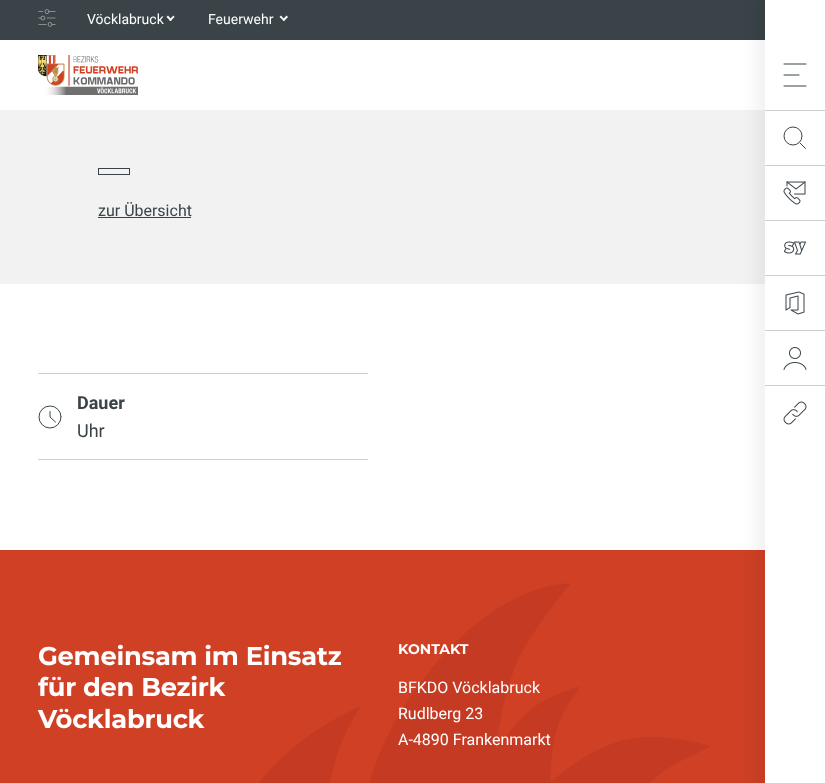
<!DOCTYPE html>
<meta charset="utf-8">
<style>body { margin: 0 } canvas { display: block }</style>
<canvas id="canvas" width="825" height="783"></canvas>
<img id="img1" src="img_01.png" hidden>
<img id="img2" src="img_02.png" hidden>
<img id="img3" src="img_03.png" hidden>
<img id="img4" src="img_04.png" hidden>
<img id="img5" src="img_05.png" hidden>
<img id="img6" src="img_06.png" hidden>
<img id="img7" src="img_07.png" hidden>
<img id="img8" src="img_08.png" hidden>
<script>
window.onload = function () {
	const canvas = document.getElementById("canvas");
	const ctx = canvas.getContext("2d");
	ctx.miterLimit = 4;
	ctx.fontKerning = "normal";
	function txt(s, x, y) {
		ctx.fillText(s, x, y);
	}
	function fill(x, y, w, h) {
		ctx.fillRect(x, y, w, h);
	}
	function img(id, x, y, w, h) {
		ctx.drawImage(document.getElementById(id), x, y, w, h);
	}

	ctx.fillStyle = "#FFFFFF";
	fill(0, 0, 825, 783);
	ctx.fillStyle = "#394348";
	fill(0, 0, 765, 40);
	img("img1", 38, 9, 18, 18);
	ctx.fillStyle = "#FFFFFF";
	ctx.beginPath();
	ctx.moveTo(173.5, 15.5);
	ctx.lineTo(174.5, 17);
	ctx.lineTo(170.5, 21);
	ctx.lineTo(169, 20);
	ctx.closePath();
	ctx.fill();
	ctx.beginPath();
	ctx.moveTo(168, 15.5);
	ctx.lineTo(172, 20);
	ctx.lineTo(170.5, 21);
	ctx.lineTo(166.5, 17);
	ctx.closePath();
	ctx.fill();
	ctx.beginPath();
	ctx.moveTo(286.5, 15.5);
	ctx.lineTo(288, 17);
	ctx.lineTo(284, 21);
	ctx.lineTo(282.5, 20);
	ctx.closePath();
	ctx.fill();
	ctx.beginPath();
	ctx.moveTo(281, 15.5);
	ctx.lineTo(285, 20);
	ctx.lineTo(284, 21);
	ctx.lineTo(279.5, 17);
	ctx.closePath();
	ctx.fill();
	ctx.fillStyle = "#F2F2F2";
	fill(0, 110, 765, 174);
	ctx.fillStyle = "#CF4025";
	fill(0, 550, 765, 233);
	ctx.fillStyle = "rgba(0, 0, 0, 0.05)";
	ctx.filter = "blur(7.5px)";
	ctx.beginPath();
	ctx.rect(755, -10, 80, 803);
	ctx.fill();
	ctx.filter = "none";
	ctx.fillStyle = "#FFFFFF";
	fill(765, 0, 60, 783);
	ctx.fillStyle = "#CDD0D1";
	fill(765, 110, 60, 1);
	ctx.beginPath();
	ctx.arc(793, 136, 9, 0, Math.PI * 2);
	ctx.strokeStyle = "#394348";
	ctx.stroke();
	ctx.beginPath();
	ctx.moveTo(800, 143);
	ctx.lineTo(805.5, 148.5);
	ctx.lineCap = "round";
	ctx.lineJoin = "round";
	ctx.stroke();
	fill(765, 165, 60, 1);
	img("img2", 783, 181, 23, 24);
	fill(765, 220, 60, 1);
	img("img3", 783, 241, 23, 14);
	fill(765, 275, 60, 1);
	img("img4", 785, 291, 20, 24);
	fill(765, 330, 60, 1);
	img("img5", 783, 347, 24, 23);
	fill(765, 385, 60, 1);
	img("img6", 783, 401, 24, 24);
	img("img7", 38, 55, 100, 40);
	ctx.beginPath();
	ctx.moveTo(784, 75);
	ctx.lineTo(799, 75);
	ctx.moveTo(784, 64);
	ctx.lineTo(806, 64);
	ctx.moveTo(784, 86);
	ctx.lineTo(806, 86);
	ctx.stroke();
	ctx.lineJoin = "miter";
	ctx.strokeRect(98.5, 168.5, 31, 6);
	ctx.fillStyle = "#394348";
	fill(98, 217, 93, 1);
	ctx.fillStyle = "#CDD0D1";
	fill(38, 373, 330, 1);
	ctx.beginPath();
	ctx.arc(50, 417, 11, 0, Math.PI * 2);
	ctx.stroke();
	ctx.beginPath();
	ctx.moveTo(50, 411.5);
	ctx.lineTo(50, 417);
	ctx.lineTo(55.5, 422);
	ctx.lineJoin = "round";
	ctx.stroke();
	fill(38, 459, 330, 1);
	img("img8", 259, 583, 452, 200);
	ctx.font = "14px Roboto";
	ctx.fillStyle = "#FFFFFF";
	txt("Vöcklabruck", 87, 24);
	txt("Feuerwehr", 208, 24);
	ctx.font = "16px Roboto";
	ctx.fillStyle = "#394348";
	txt("zur Übersicht", 98, 216);
	ctx.font = "bold 18px Roboto";
	txt("Dauer", 77, 409);
	ctx.font = "18px Roboto";
	txt("Uhr", 77, 437);
	ctx.letterSpacing = "-0.25px";
	ctx.font = "100 25.75px Montserrat";
	ctx.fillStyle = "#FFFFFF";
	txt("Gemeinsam im Einsatz", 38, 665);
	txt("für den Bezirk", 38, 696);
	txt("Vöcklabruck", 38, 728);
	ctx.letterSpacing = "0px";
	ctx.font = "100 14px Montserrat";
	txt("KONTAKT", 398, 654);
	ctx.font = "16px Roboto";
	txt("BFKDO Vöcklabruck", 398, 693);
	txt("Rudlberg 23", 398, 719);
	txt("A-4890 Frankenmarkt", 398, 745);
};
</script>
